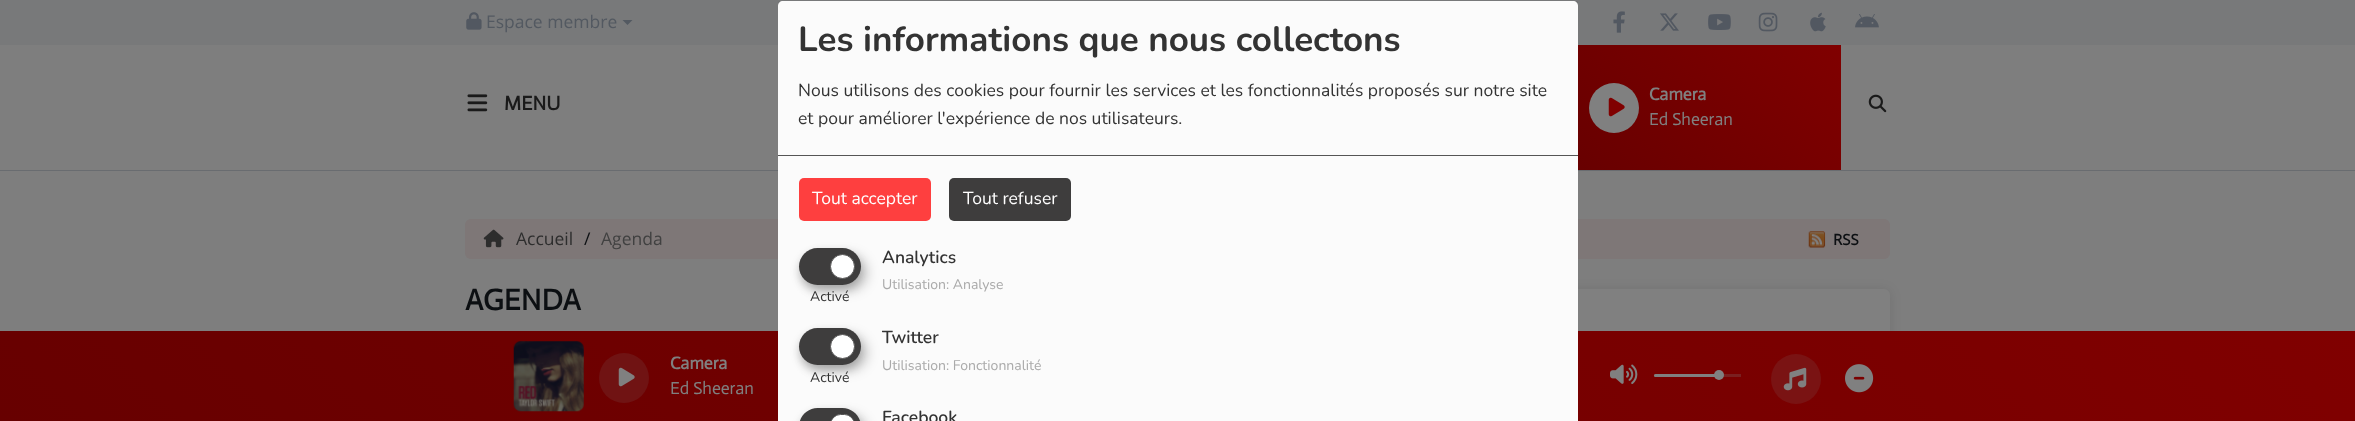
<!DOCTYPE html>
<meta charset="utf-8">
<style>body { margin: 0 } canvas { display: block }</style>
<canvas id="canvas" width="2355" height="421"></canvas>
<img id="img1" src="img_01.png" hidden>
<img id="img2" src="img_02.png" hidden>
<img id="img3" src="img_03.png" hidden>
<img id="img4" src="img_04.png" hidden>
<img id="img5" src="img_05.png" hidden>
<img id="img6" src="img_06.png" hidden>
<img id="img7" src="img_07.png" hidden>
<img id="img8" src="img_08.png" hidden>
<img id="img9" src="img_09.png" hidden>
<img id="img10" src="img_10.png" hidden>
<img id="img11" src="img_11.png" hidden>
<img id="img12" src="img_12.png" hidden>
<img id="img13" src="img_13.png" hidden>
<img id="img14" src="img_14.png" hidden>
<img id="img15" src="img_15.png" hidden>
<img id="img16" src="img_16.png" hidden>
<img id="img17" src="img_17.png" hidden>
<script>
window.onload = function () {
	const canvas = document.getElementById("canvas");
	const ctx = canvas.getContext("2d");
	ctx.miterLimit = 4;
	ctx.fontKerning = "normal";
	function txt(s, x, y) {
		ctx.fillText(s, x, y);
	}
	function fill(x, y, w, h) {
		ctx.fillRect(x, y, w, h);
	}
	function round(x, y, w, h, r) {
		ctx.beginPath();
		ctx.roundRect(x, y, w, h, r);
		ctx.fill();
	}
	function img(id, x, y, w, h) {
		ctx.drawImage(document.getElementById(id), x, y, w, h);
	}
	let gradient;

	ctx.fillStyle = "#7E7E7E";
	fill(0, 0, 2355, 421);
	ctx.fillStyle = "#78797A";
	fill(0, 0, 2355, 45);
	img("img1", 466, 12, 16, 18);
	ctx.fillStyle = "#535961";
	ctx.beginPath();
	ctx.moveTo(622.5, 20);
	ctx.lineTo(632.5, 20);
	ctx.lineTo(627.5, 25);
	ctx.closePath();
	ctx.fill();
	img("img2", 1613, 11, 12, 22);
	img("img3", 1660, 13, 19, 18);
	img("img4", 1708, 14, 23, 16);
	img("img5", 1758, 12, 20, 20);
	img("img6", 1810, 12, 16, 20);
	img("img7", 1855, 14, 24, 14);
	ctx.fillStyle = "#696C70";
	fill(0, 170, 2355, 1);
	img("img8", 467, 94, 21, 18);
	gradient = ctx.createLinearGradient(1804, 7.5, 1604, 208);
	gradient.addColorStop(0, "#800000");
	gradient.addColorStop(1, "#670000");
	ctx.fillStyle = gradient;
	fill(1578, 45, 263, 125);
	ctx.fillStyle = "#808080";
	ctx.beginPath();
	ctx.arc(1614, 108, 25, 0, Math.PI * 2);
	ctx.fill();
	img("img9", 1608, 97, 17, 20);
	img("img10", 1868, 94, 19, 19);
	ctx.fillStyle = "rgba(0, 0, 0, 0.1)";
	ctx.filter = "blur(6px)";
	ctx.beginPath();
	ctx.roundRect(1440, 290, 450, 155, 6);
	ctx.fill();
	ctx.filter = "none";
	ctx.fillStyle = "#808080";
	round(1440, 289, 450, 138, 6);
	gradient = ctx.createLinearGradient(1789, -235, 566, 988);
	gradient.addColorStop(0, "#800000");
	gradient.addColorStop(1, "#670000");
	ctx.fillStyle = gradient;
	fill(0, 331, 2355, 90);
	img("img11", 513, 341, 71, 71);
	ctx.fillStyle = "#701313";
	ctx.beginPath();
	ctx.arc(624, 378, 25, 0, Math.PI * 2);
	ctx.fill();
	img("img12", 618, 367, 17, 20);
	img("img13", 1610, 364, 28, 20);
	ctx.fillStyle = "#7A2020";
	fill(1654, 374, 87, 3);
	ctx.fillStyle = "#808080";
	round(1654, 374, 66, 3, 1.5);
	ctx.beginPath();
	ctx.arc(1719, 375, 5, 0, Math.PI * 2);
	ctx.fill();
	ctx.fillStyle = "#7A1313";
	ctx.beginPath();
	ctx.arc(1796, 379, 25, 0, Math.PI * 2);
	ctx.fill();
	img("img14", 1783, 367, 24, 24);
	img("img15", 1845, 364, 29, 29);
	ctx.fillStyle = "#7E7777";
	round(465, 219, 1425, 40, 6);
	ctx.save();
	ctx.beginPath();
	ctx.rect(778, 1, 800, 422);
	ctx.clip();
	ctx.fillStyle = "rgba(0, 0, 0, 0.19)";
	ctx.filter = "blur(6px)";
	ctx.beginPath();
	ctx.roundRect(784, 8, 800, 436, 5);
	ctx.fill();
	ctx.filter = "none";
	ctx.fillStyle = "rgba(0, 0, 0, 0.2)";
	ctx.filter = "blur(4px)";
	ctx.beginPath();
	ctx.roundRect(778, 6, 800, 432, 5);
	ctx.fill();
	ctx.filter = "none";
	ctx.restore();
	ctx.fillStyle = "#FBFBFB";
	ctx.beginPath();
	ctx.moveTo(783, 1);
	ctx.lineTo(1573, 1);
	ctx.bezierCurveTo(1576, 1, 1578, 3, 1578, 6);
	ctx.lineTo(1578, 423);
	ctx.lineTo(778, 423);
	ctx.lineTo(778, 6);
	ctx.bezierCurveTo(778, 3, 780, 1, 783, 1);
	ctx.closePath();
	ctx.fill();
	ctx.fillStyle = "#555555";
	fill(778, 155, 800, 1);
	ctx.fillStyle = "#FE3F3F";
	round(799, 178, 132, 43, 5);
	ctx.fillStyle = "#3E3D3D";
	round(949, 178, 122, 43, 5);
	ctx.fillStyle = "rgba(0, 0, 0, 0.19)";
	ctx.filter = "blur(6px)";
	ctx.beginPath();
	ctx.roundRect(805, 254, 63, 37, 18.5);
	ctx.fill();
	ctx.filter = "none";
	ctx.fillStyle = "rgba(0, 0, 0, 0.2)";
	ctx.filter = "blur(4px)";
	ctx.beginPath();
	ctx.roundRect(799, 253, 62, 37, 18.5);
	ctx.fill();
	ctx.filter = "none";
	ctx.fillStyle = "#3E3D3D";
	round(799, 248, 62, 37, 18.5);
	ctx.fillStyle = "#FFFFFF";
	ctx.beginPath();
	ctx.arc(842.5, 266.5, 12, 0, Math.PI * 2);
	ctx.fill();
	ctx.strokeStyle = "#555555";
	ctx.stroke();
	ctx.fillStyle = "rgba(0, 0, 0, 0.19)";
	ctx.filter = "blur(6px)";
	ctx.beginPath();
	ctx.roundRect(805, 334, 63, 37, 18.5);
	ctx.fill();
	ctx.filter = "none";
	ctx.fillStyle = "rgba(0, 0, 0, 0.2)";
	ctx.filter = "blur(4px)";
	ctx.beginPath();
	ctx.roundRect(799, 333, 62, 37, 18.5);
	ctx.fill();
	ctx.filter = "none";
	ctx.fillStyle = "#3E3D3D";
	round(799, 328, 62, 37, 18.5);
	ctx.fillStyle = "#FFFFFF";
	ctx.beginPath();
	ctx.arc(842.5, 346.5, 12, 0, Math.PI * 2);
	ctx.fill();
	ctx.stroke();
	ctx.fillStyle = "rgba(0, 0, 0, 0.19)";
	ctx.filter = "blur(6px)";
	ctx.beginPath();
	ctx.roundRect(805, 414, 63, 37, 18.5);
	ctx.fill();
	ctx.filter = "none";
	ctx.fillStyle = "rgba(0, 0, 0, 0.2)";
	ctx.filter = "blur(4px)";
	ctx.beginPath();
	ctx.roundRect(799, 413, 62, 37, 18.5);
	ctx.fill();
	ctx.filter = "none";
	ctx.fillStyle = "#3E3D3D";
	ctx.beginPath();
	ctx.moveTo(817.5, 408);
	ctx.lineTo(842.5, 408);
	ctx.bezierCurveTo(852.5, 408, 861, 416.5, 861, 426.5);
	ctx.lineTo(861, 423);
	ctx.lineTo(799, 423);
	ctx.lineTo(799, 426.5);
	ctx.bezierCurveTo(799, 416.5, 807.5, 408, 817.5, 408);
	ctx.closePath();
	ctx.fill();
	ctx.fillStyle = "#FFFFFF";
	ctx.beginPath();
	ctx.moveTo(842.5, 414);
	ctx.bezierCurveTo(849.5, 414, 855, 419.5, 855, 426.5);
	ctx.lineTo(855, 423);
	ctx.lineTo(830, 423);
	ctx.lineTo(830, 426.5);
	ctx.bezierCurveTo(830, 419.5, 835.5, 414, 842.5, 414);
	ctx.closePath();
	ctx.fill();
	ctx.beginPath();
	ctx.roundRect(830.5, 414.5, 24, 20, 12);
	ctx.stroke();
	img("img16", 483, 229, 21, 19);
	img("img17", 1808, 231, 18, 17);
	ctx.font = "17.5px Open Sans";
	ctx.fillStyle = "#535961";
	txt("Espace membre", 486, 28);
	ctx.font = "bold 20px Actor";
	ctx.fillStyle = "#1A1A1A";
	txt("MENU", 504, 110);
	ctx.font = "bold 17.5px Actor";
	ctx.fillStyle = "#808080";
	txt("Camera", 1649, 100);
	ctx.font = "17.5px Actor";
	txt("Ed Sheeran", 1649, 125);
	ctx.font = "bold 17.5px Actor";
	txt("Camera", 670, 369);
	ctx.font = "17.5px Actor";
	txt("Ed Sheeran", 670, 394);
	ctx.font = "bold 35px Nunito";
	ctx.fillStyle = "#333333";
	txt("Les informations que nous collectons", 798, 51);
	ctx.font = "17.5px Nunito";
	txt("Nous utilisons des cookies pour fournir les services et les fonctionnalités proposés sur notre site", 798, 96);
	txt("et pour améliorer l'expérience de nos utilisateurs.", 798, 124);
	ctx.fillStyle = "#FFFFFF";
	txt("Tout accepter", 812, 204);
	txt("Tout refuser", 963, 204);
	ctx.font = "600 17.5px Nunito";
	ctx.fillStyle = "#333333";
	txt("Analytics", 882, 263);
	ctx.font = "14px Nunito";
	txt("Activé", 810, 301);
	ctx.fillStyle = "#AAAAAA";
	txt("Utilisation: Analyse", 882, 289);
	ctx.font = "600 17.5px Nunito";
	ctx.fillStyle = "#333333";
	txt("Twitter", 882, 343);
	ctx.font = "14px Nunito";
	txt("Activé", 810, 382);
	ctx.fillStyle = "#AAAAAA";
	txt("Utilisation: Fonctionnalité", 882, 370);
	ctx.font = "600 17.5px Nunito";
	ctx.fillStyle = "#333333";
	txt("Facebook", 882, 423);
	ctx.font = "17.5px Open Sans";
	ctx.fillStyle = "#2D2D2D";
	txt("Accueil", 516, 245);
	ctx.fillStyle = "#0C0F12";
	txt("/", 584, 245);
	ctx.fillStyle = "#414141";
	txt("Agenda", 601, 245);
	ctx.font = "bold 15px Open Sans";
	ctx.fillStyle = "#0C0F12";
	txt("RSS", 1833, 245);
	ctx.font = "bold 30px Actor";
	txt("AGENDA", 465, 310);
};
</script>
